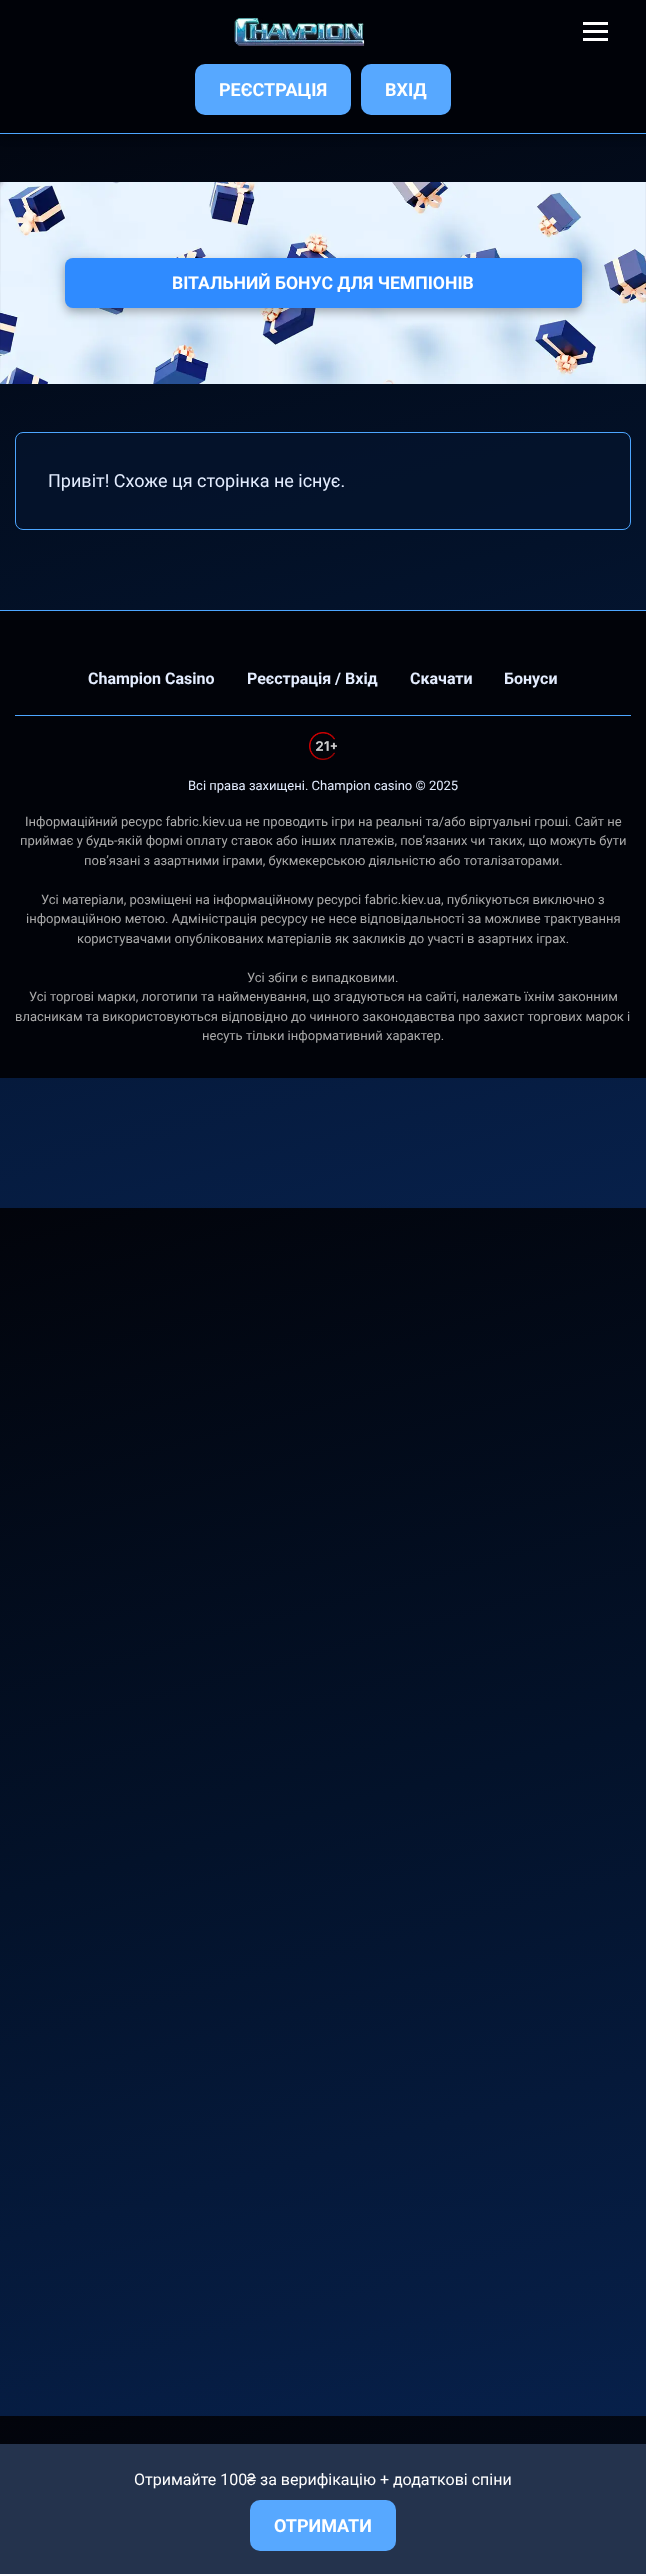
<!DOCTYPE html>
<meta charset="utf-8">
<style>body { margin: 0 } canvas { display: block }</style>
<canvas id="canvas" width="646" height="2574"></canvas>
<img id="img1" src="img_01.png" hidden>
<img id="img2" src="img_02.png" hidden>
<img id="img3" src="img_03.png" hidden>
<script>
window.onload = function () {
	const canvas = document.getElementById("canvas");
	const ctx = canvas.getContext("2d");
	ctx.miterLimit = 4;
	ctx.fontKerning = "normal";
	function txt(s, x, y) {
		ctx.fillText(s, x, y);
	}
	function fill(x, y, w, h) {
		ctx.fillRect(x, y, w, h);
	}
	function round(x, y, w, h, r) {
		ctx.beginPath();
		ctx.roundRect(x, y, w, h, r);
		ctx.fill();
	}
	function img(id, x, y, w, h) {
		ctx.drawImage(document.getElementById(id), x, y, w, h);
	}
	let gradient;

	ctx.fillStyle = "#FFFFFF";
	fill(0, 0, 646, 2574);
	gradient = ctx.createLinearGradient(150, -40, 496, 1248);
	gradient.addColorStop(0, "#02040B");
	gradient.addColorStop(0.5, "#03122A");
	gradient.addColorStop(1, "#07204A");
	ctx.fillStyle = gradient;
	fill(0, 134, 646, 1074);
	gradient = ctx.createLinearGradient(150, 1168, 496, 2456);
	gradient.addColorStop(0, "#02040B");
	gradient.addColorStop(0.5, "#03122A");
	gradient.addColorStop(1, "#07204A");
	ctx.fillStyle = gradient;
	fill(0, 1208, 646, 1208);
	gradient = ctx.createLinearGradient(150, 2376, 496, 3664);
	gradient.addColorStop(0, "#02040B");
	gradient.addColorStop(0.5, "#03122A");
	gradient.addColorStop(1, "#07204A");
	ctx.fillStyle = gradient;
	fill(0, 2416, 646, 28);
	ctx.fillStyle = "rgba(0, 0, 0, 0.5)";
	ctx.filter = "blur(5px)";
	ctx.beginPath();
	ctx.rect(0, 2, 646, 134);
	ctx.fill();
	ctx.filter = "none";
	ctx.fillStyle = "#000208";
	fill(0, 0, 646, 133);
	ctx.fillStyle = "#4DA6FF";
	fill(0, 133, 646, 1);
	img("img1", 234, 17, 131, 29);
	ctx.fillStyle = "#FFFFFF";
	fill(583, 30, 25, 3);
	fill(583, 22, 25, 3);
	fill(583, 38, 25, 3);
	ctx.fillStyle = "#57A8FF";
	round(195, 64, 156, 51, 10);
	round(361, 64, 90, 51, 10);
	img("img2", 0, 182, 646, 202);
	ctx.fillStyle = "rgba(0, 0, 0, 0.3)";
	ctx.filter = "blur(5px)";
	ctx.beginPath();
	ctx.roundRect(65, 262, 517, 50, 8);
	ctx.fill();
	ctx.filter = "none";
	ctx.fillStyle = "#2F8BFF";
	round(65, 258, 517, 50, 8);
	ctx.fillStyle = "rgba(6, 20, 45, 0.75)";
	ctx.beginPath();
	ctx.roundRect(15.5, 432.5, 615, 97, 7.5);
	ctx.fill();
	ctx.strokeStyle = "#4DA6FF";
	ctx.stroke();
	ctx.fillStyle = "#010309";
	fill(0, 611, 646, 467);
	ctx.fillStyle = "#4DA6FF";
	fill(0, 610, 646, 1);
	fill(15, 715, 616, 1);
	img("img3", 309, 732, 28, 28);
	ctx.fillStyle = "#24334D";
	fill(0, 2444, 646, 130);
	ctx.fillStyle = "#57A8FF";
	round(250, 2500, 146, 51, 10);
	ctx.font = "bold 18px Roboto";
	ctx.fillStyle = "#FFFFFF";
	txt("РЕЄСТРАЦІЯ", 219, 96);
	txt("ВХІД", 385, 96);
	ctx.font = "bold 17.6px Roboto";
	txt("ВІТАЛЬНИЙ БОНУС ДЛЯ ЧЕМПІОНІВ", 172, 289);
	ctx.font = "18px Roboto";
	ctx.fillStyle = "#E4EDFF";
	txt("Привіт! Схоже ця сторінка не існує.", 48, 487);
	ctx.font = "bold 16px Roboto";
	txt("Champion Casino", 88, 684);
	txt("Реєстрація / Вхід", 247, 684);
	txt("Скачати", 410, 684);
	txt("Бонуси", 504, 684);
	ctx.font = "13px Roboto";
	txt("Всі права захищені. Champion casino © 2025", 188, 790);
	ctx.fillStyle = "#AAAAAA";
	txt("Інформаційний ресурс fabric.kiev.ua не проводить ігри на реальні та/або віртуальні гроші. Сайт не", 25, 826);
	txt("приймає у будь-якій формі оплату ставок або інших платежів, пов’язаних чи таких, що можуть бути", 20, 845);
	txt("пов’язані з азартними іграми, букмекерською діяльністю або тоталізаторами.", 84, 865);
	txt("Усі матеріали, розміщені на інформаційному ресурсі fabric.kiev.ua, публікуються виключно з", 41, 904);
	txt("інформаційною метою. Адміністрація ресурсу не несе відповідальності за можливе трактування", 26, 923);
	txt("користувачами опублікованих матеріалів як закликів до участі в азартних іграх.", 77, 943);
	txt("Усі збіги є випадковими.", 247, 982);
	txt("Усі торгові марки, логотипи та найменування, що згадуються на сайті, належать їхнім законним", 29, 1001);
	txt("власникам та використовуються відповідно до чинного законодавства про захист торгових марок і", 15, 1021);
	txt("несуть тільки інформативний характер.", 202, 1040);
	ctx.font = "16px Roboto";
	ctx.fillStyle = "#FFFFFF";
	txt("Отримайте 100", 134, 2485);
	ctx.font = "16px Liberation Sans";
	txt("₴", 247, 2485);
	ctx.font = "16px Roboto";
	txt("за верифікацію + додаткові спіни", 260, 2485);
	ctx.font = "bold 18px Roboto";
	txt("ОТРИМАТИ", 274, 2532);
};
</script>
